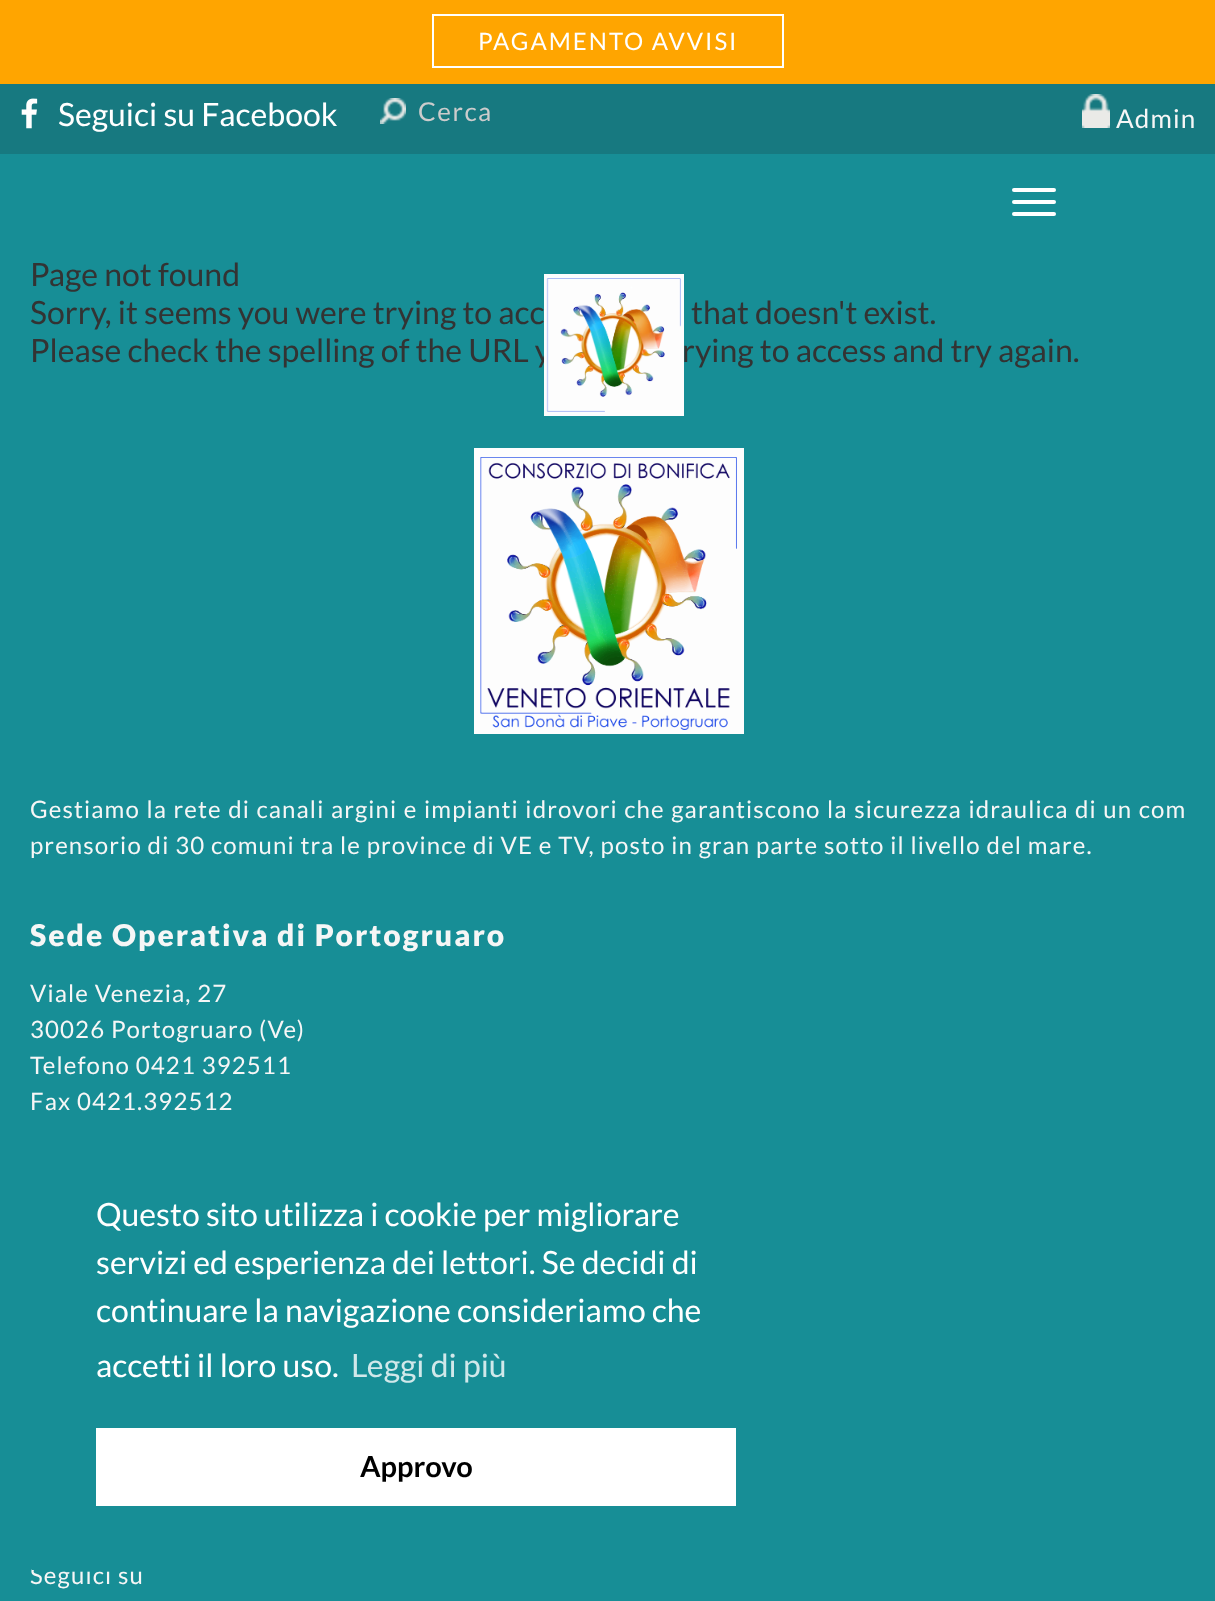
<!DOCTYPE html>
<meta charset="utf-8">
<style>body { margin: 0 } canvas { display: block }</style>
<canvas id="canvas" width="1215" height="1601"></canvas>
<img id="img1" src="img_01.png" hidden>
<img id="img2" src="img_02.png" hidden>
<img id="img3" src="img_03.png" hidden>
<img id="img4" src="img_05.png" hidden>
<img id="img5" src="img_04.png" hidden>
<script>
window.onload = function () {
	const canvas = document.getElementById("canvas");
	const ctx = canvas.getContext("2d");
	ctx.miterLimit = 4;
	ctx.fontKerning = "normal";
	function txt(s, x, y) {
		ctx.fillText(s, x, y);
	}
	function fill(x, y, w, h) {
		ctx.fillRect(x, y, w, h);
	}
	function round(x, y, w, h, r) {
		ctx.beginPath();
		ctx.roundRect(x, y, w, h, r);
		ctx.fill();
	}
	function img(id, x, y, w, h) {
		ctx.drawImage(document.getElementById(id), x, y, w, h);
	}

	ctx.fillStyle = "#178E96";
	fill(0, 0, 1215, 1601);
	ctx.fillStyle = "#FFA500";
	fill(0, 0, 1215, 84);
	ctx.strokeStyle = "#FFFFFF";
	ctx.lineWidth = 2;
	ctx.strokeRect(433, 15, 350, 52);
	ctx.fillStyle = "#177980";
	fill(0, 84, 1215, 70);
	img("img1", 21, 98, 17, 31);
	img("img2", 380, 98, 26, 26);
	img("img3", 1082, 94, 28, 34);
	ctx.fillStyle = "#FFFFFF";
	round(1012, 188, 44, 4, 2);
	round(1012, 200, 44, 4, 2);
	round(1012, 212, 44, 4, 2);
	img("img4", 474, 448, 270, 286);
	fill(96, 1428, 640, 78);
	ctx.letterSpacing = "2px";
	ctx.font = "24px Lato";
	txt("PAGAMENTO AVVISI", 478, 50);
	ctx.letterSpacing = "0px";
	ctx.font = "32px Lato";
	txt("Seguici su Facebook", 58, 126);
	ctx.letterSpacing = "1.5px";
	ctx.font = "26px Lato";
	ctx.fillStyle = "#CCCCCC";
	txt("Cerca", 418, 121);
	ctx.letterSpacing = "1.12px";
	ctx.fillStyle = "#F6F6F6";
	txt("Admin", 1116, 128);
	ctx.letterSpacing = "0px";
	ctx.font = "32px Lato";
	ctx.fillStyle = "#333333";
	txt("Page not found", 30, 286);
	txt("Sorry, it seems you were trying to acc", 30, 324);
	txt("that doesn't exist.", 691, 324);
	txt("Please check the spelling of the URL y", 30, 362);
	txt("rying to access and try again.", 682, 362);
	img("img5", 544, 274, 140, 142);
	ctx.letterSpacing = "1.12px";
	ctx.wordSpacing = "0.75px";
	ctx.font = "24px Lato";
	ctx.fillStyle = "#F6F6F6";
	txt("Gestiamo la rete di canali argini e impianti idrovori che garantiscono la sicurezza idraulica di un com", 30, 818);
	ctx.wordSpacing = "0px";
	txt("prensorio di 30 comuni tra le province di VE e TV, posto in gran parte sotto il livello del mare.", 30, 854);
	ctx.letterSpacing = "2px";
	ctx.font = "900 30px Lato";
	txt("Sede Operativa di Portogruaro", 30, 946);
	ctx.letterSpacing = "1.12px";
	ctx.font = "24px Lato";
	txt("Viale Venezia, 27", 30, 1002);
	txt("30026 Portogruaro (Ve)", 30, 1038);
	txt("Telefono 0421 392511", 30, 1074);
	txt("Fax 0421.392512", 30, 1110);
	txt("Seguici su", 30, 1584);
	ctx.fillStyle = "#178E96";
	fill(32, 1566, 78, 4);
	ctx.letterSpacing = "0px";
	ctx.font = "32px Lato";
	ctx.fillStyle = "#FFFFFF";
	txt("Questo sito utilizza i cookie per migliorare", 96, 1226);
	txt("servizi ed esperienza dei lettori. Se decidi di", 96, 1274);
	txt("continuare la navigazione consideriamo che", 96, 1322);
	txt("accetti il loro uso.", 96, 1377);
	ctx.fillStyle = "#D1E8EA";
	txt("Leggi di più", 351, 1377);
	ctx.font = "bold 29px Lato";
	ctx.fillStyle = "#000000";
	txt("Approvo", 360, 1477);
};
</script>
